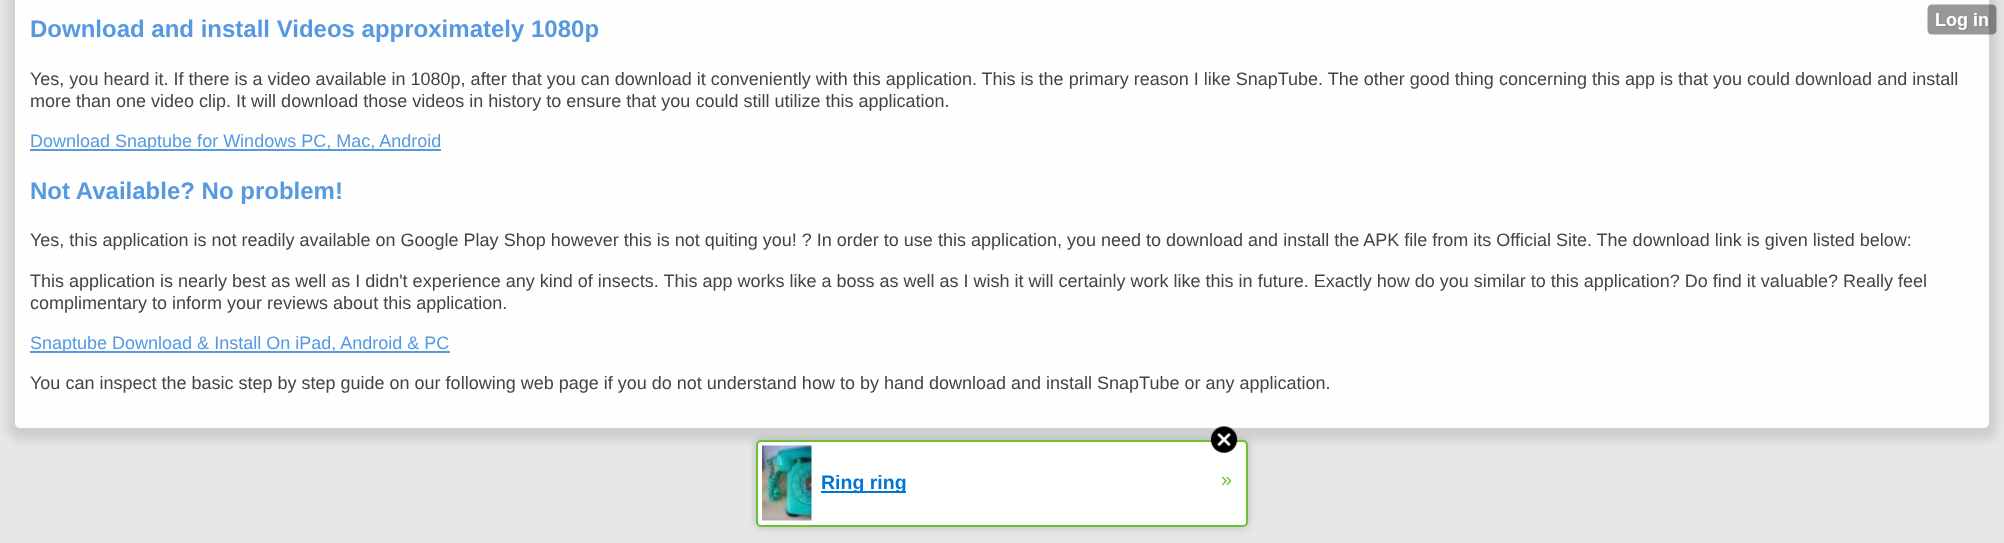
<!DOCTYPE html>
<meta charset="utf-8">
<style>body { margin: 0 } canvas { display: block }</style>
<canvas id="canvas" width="2004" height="543"></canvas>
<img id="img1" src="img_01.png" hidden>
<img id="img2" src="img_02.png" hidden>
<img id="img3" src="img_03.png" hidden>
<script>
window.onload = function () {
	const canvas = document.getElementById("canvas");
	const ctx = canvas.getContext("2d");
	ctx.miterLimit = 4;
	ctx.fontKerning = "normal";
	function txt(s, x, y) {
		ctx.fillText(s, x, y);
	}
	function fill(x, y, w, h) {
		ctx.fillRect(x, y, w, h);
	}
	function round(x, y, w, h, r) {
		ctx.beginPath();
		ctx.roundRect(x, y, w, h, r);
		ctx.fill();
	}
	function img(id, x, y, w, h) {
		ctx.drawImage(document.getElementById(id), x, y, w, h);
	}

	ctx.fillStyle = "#E7E7E7";
	fill(0, 0, 2004, 543);
	ctx.fillStyle = "rgba(0, 0, 0, 0.1)";
	ctx.filter = "blur(4px)";
	ctx.beginPath();
	ctx.roundRect(8, -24, 1989, 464, 12);
	ctx.fill();
	ctx.filter = "none";
	ctx.fillStyle = "#FEFEFE";
	round(15, -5, 1974, 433, 5);
	ctx.fillStyle = "#5699E1";
	fill(30, 149, 411, 2);
	fill(30, 351, 420, 2);
	img("img1", 1927, 4, 70, 31);
	ctx.fillStyle = "rgba(0, 0, 0, 0.2)";
	ctx.filter = "blur(4px)";
	ctx.beginPath();
	ctx.roundRect(756, 440, 492, 87, 5);
	ctx.fill();
	ctx.filter = "none";
	ctx.fillStyle = "#FFFFFF";
	ctx.beginPath();
	ctx.roundRect(757, 441, 490, 85, 4);
	ctx.fill();
	ctx.strokeStyle = "#6BC135";
	ctx.lineWidth = 2;
	ctx.stroke();
	img("img2", 1210, 426, 28, 27);
	img("img3", 762, 445, 50, 76);
	ctx.fillStyle = "#0274D4";
	fill(821, 491, 85, 2);
	ctx.font = "bold 24px Liberation Sans";
	ctx.fillStyle = "#5699E1";
	txt("Download and install Videos approximately 1080p", 30, 37);
	ctx.font = "18px Liberation Sans";
	ctx.fillStyle = "#444444";
	txt("Yes, you heard it. If there is a video available in 1080p, after that you can download it conveniently with this application. This is the primary reason I like SnapTube. The other good thing concerning this app is that you could download and install", 30, 85);
	txt("more than one video clip. It will download those videos in history to ensure that you could still utilize this application.", 30, 107);
	ctx.fillStyle = "#5699E1";
	txt("Download Snaptube for Windows PC, Mac, Android", 30, 147);
	ctx.font = "bold 24px Liberation Sans";
	txt("Not Available? No problem!", 30, 199);
	ctx.font = "18px Liberation Sans";
	ctx.fillStyle = "#444444";
	txt("Yes, this application is not readily available on Google Play Shop however this is not quiting you! ? In order to use this application, you need to download and install the APK file from its Official Site. The download link is given listed below:", 30, 246);
	txt("This application is nearly best as well as I didn't experience any kind of insects. This app works like a boss as well as I wish it will certainly work like this in future. Exactly how do you similar to this application? Do find it valuable? Really feel", 30, 287);
	txt("complimentary to inform your reviews about this application.", 30, 309);
	ctx.fillStyle = "#5699E1";
	txt("Snaptube Download & Install On iPad, Android & PC", 30, 349);
	ctx.fillStyle = "#444444";
	txt("You can inspect the basic step by step guide on our following web page if you do not understand how to by hand download and install SnapTube or any application.", 30, 389);
	ctx.font = "bold 19.5px Liberation Sans";
	ctx.fillStyle = "#0274D4";
	txt("Ring ring", 821, 489);
	ctx.font = "19.5px Liberation Sans";
	ctx.fillStyle = "#6BC135";
	txt("»", 1221, 486);
};
</script>
